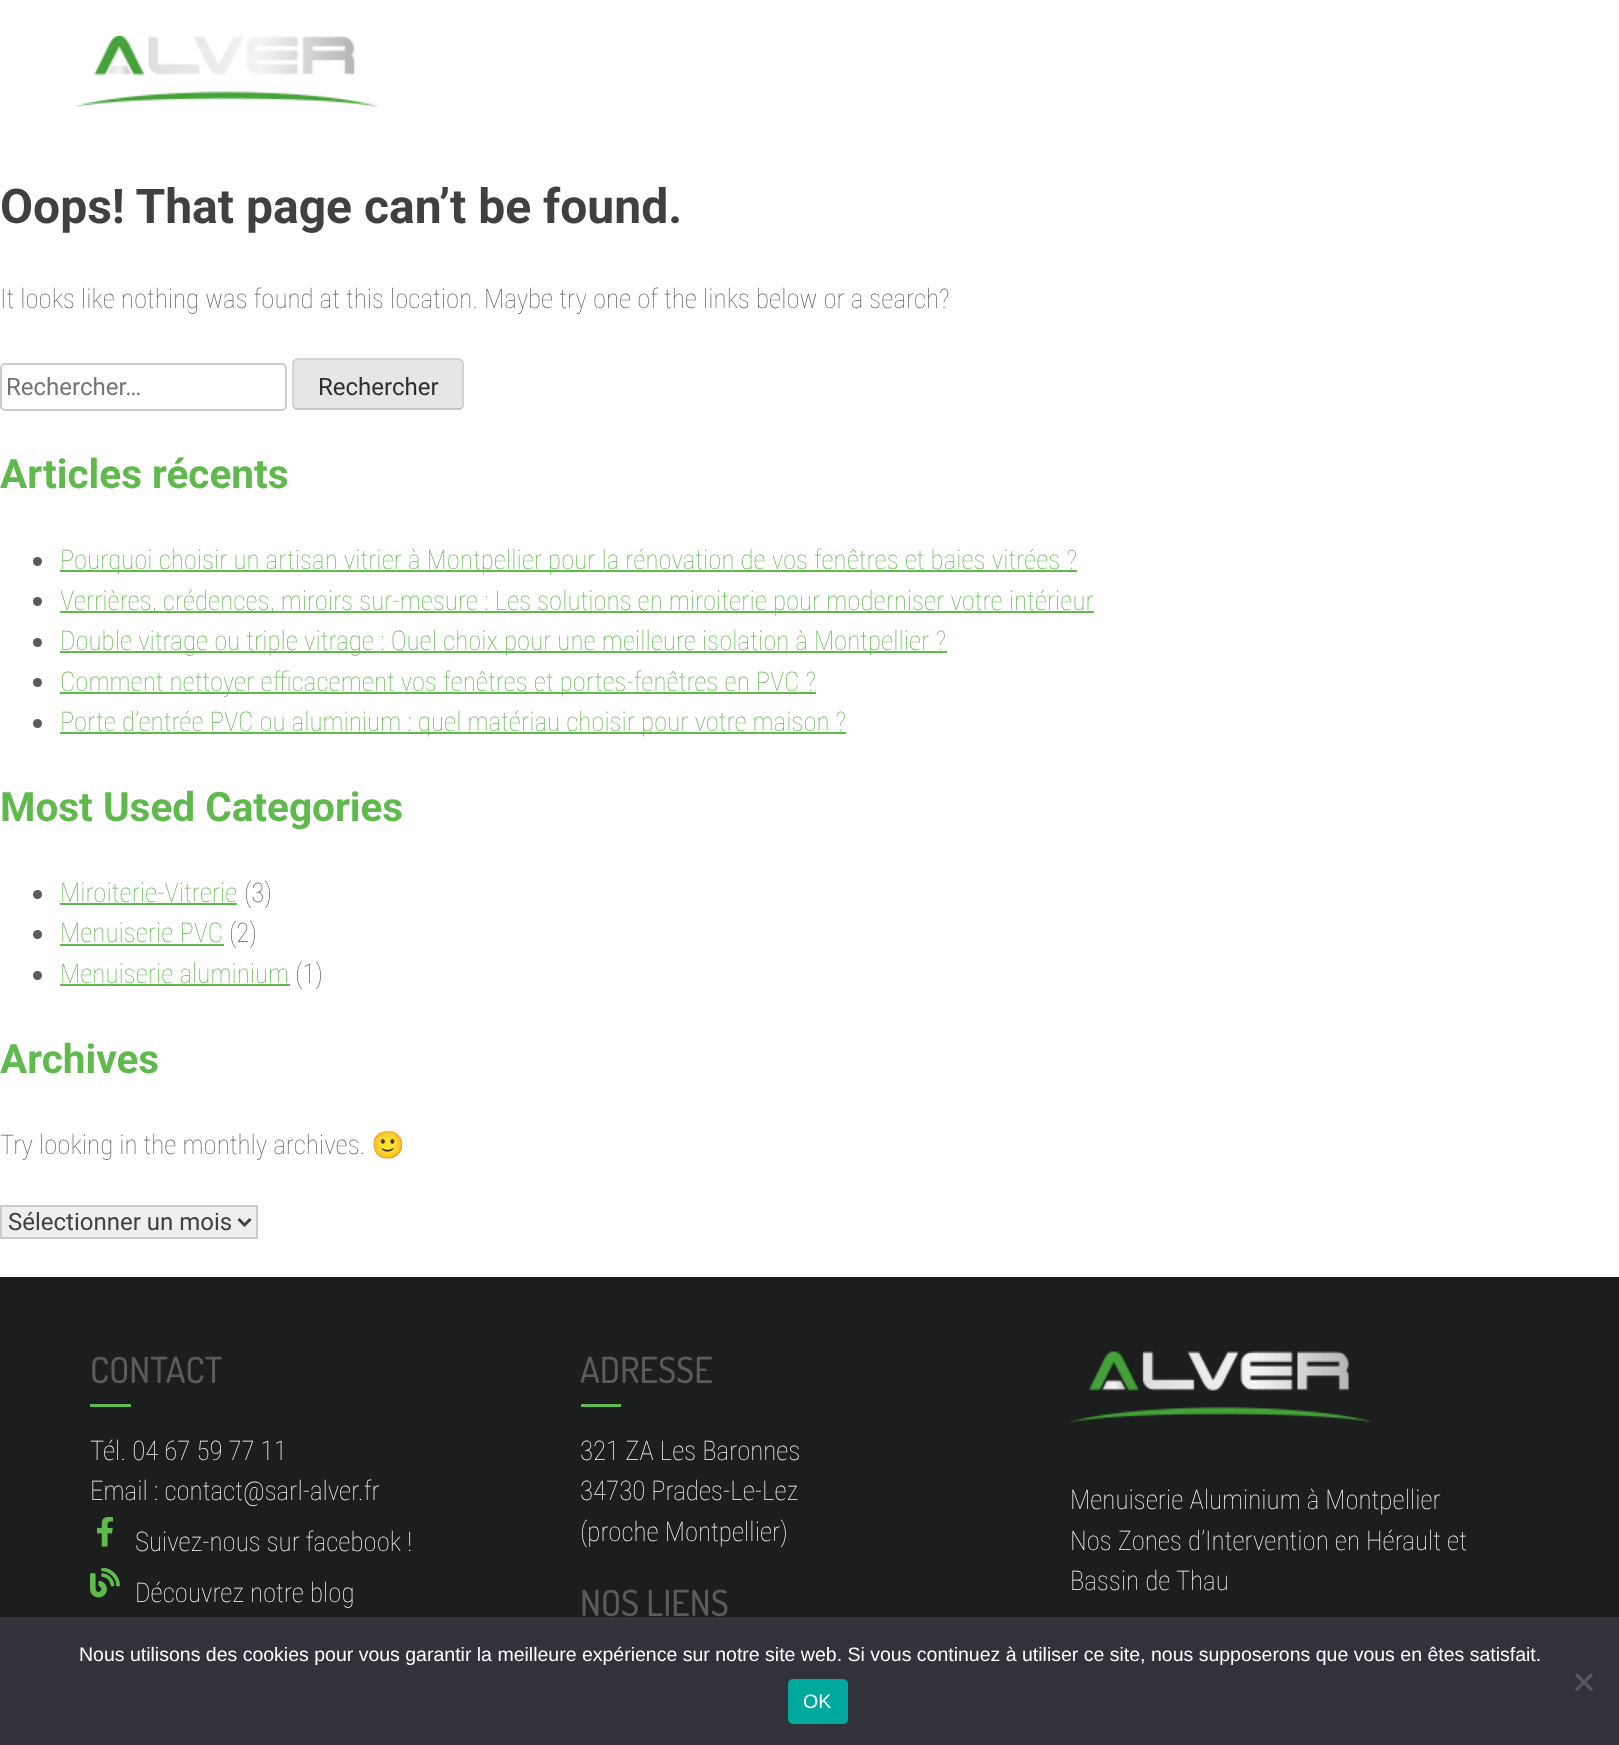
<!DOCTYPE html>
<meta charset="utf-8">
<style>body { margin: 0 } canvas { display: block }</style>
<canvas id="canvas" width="1619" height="1745"></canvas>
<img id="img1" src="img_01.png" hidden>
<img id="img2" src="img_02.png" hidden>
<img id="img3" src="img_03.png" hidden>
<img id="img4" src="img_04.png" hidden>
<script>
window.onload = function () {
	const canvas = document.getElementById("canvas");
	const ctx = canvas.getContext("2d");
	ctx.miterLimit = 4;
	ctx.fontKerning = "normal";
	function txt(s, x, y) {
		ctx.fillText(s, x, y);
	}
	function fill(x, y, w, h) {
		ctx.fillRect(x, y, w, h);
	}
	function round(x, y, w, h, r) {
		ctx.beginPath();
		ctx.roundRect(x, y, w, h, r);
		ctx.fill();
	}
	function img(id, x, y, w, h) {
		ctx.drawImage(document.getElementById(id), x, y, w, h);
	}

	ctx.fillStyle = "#FFFFFF";
	fill(0, 0, 1619, 1745);
	img("img1", 75, 36, 303, 71);
	ctx.beginPath();
	ctx.roundRect(1, 364, 285, 46, 4);
	ctx.strokeStyle = "#CCCCCC";
	ctx.lineWidth = 2;
	ctx.stroke();
	ctx.fillStyle = "#E6E6E6";
	round(293, 359, 171, 51, 5);
	ctx.beginPath();
	ctx.moveTo(461.5, 407.5);
	ctx.bezierCurveTo(461, 408.5, 460, 409, 459, 409);
	ctx.lineTo(297, 409);
	ctx.bezierCurveTo(296, 409, 295, 408.5, 294.5, 407.5);
	ctx.strokeStyle = "#BBBBBB";
	ctx.lineWidth = 1.5;
	ctx.stroke();
	ctx.beginPath();
	ctx.moveTo(294.5, 407.5);
	ctx.bezierCurveTo(293.5, 407, 293, 406, 293, 405);
	ctx.lineTo(293, 363);
	ctx.bezierCurveTo(293, 362, 293.5, 361, 294.5, 360.5);
	ctx.bezierCurveTo(295, 359.5, 296, 359, 297, 359);
	ctx.lineTo(459, 359);
	ctx.bezierCurveTo(460, 359, 461, 359.5, 461.5, 360.5);
	ctx.bezierCurveTo(462.5, 361, 463, 362, 463, 363);
	ctx.lineTo(463, 405);
	ctx.bezierCurveTo(463, 406, 462.5, 407, 461.5, 407.5);
	ctx.strokeStyle = "#CCCCCC";
	ctx.stroke();
	ctx.fillStyle = "#5B5B5A";
	ctx.beginPath();
	ctx.arc(37.5, 561.5, 4.5, 0, Math.PI * 2);
	ctx.fill();
	ctx.fillStyle = "#60B94D";
	fill(60, 570, 1017, 2);
	ctx.fillStyle = "#5B5B5A";
	ctx.beginPath();
	ctx.arc(37.5, 601.5, 4.5, 0, Math.PI * 2);
	ctx.fill();
	ctx.fillStyle = "#60B94D";
	fill(60, 611, 1034, 2);
	ctx.fillStyle = "#5B5B5A";
	ctx.beginPath();
	ctx.arc(37.5, 642.5, 4.5, 0, Math.PI * 2);
	ctx.fill();
	ctx.fillStyle = "#60B94D";
	fill(60, 651, 887, 2);
	ctx.fillStyle = "#5B5B5A";
	ctx.beginPath();
	ctx.arc(37.5, 682.5, 4.5, 0, Math.PI * 2);
	ctx.fill();
	ctx.fillStyle = "#60B94D";
	fill(60, 692, 756, 2);
	ctx.fillStyle = "#5B5B5A";
	ctx.beginPath();
	ctx.arc(37.5, 723.5, 4.5, 0, Math.PI * 2);
	ctx.fill();
	ctx.fillStyle = "#60B94D";
	fill(60, 732, 786, 2);
	ctx.fillStyle = "#5B5B5A";
	ctx.beginPath();
	ctx.arc(37.5, 894.5, 4.5, 0, Math.PI * 2);
	ctx.fill();
	ctx.fillStyle = "#60B94D";
	fill(60, 903, 177, 2);
	ctx.fillStyle = "#5B5B5A";
	ctx.beginPath();
	ctx.arc(37.5, 934.5, 4.5, 0, Math.PI * 2);
	ctx.fill();
	ctx.fillStyle = "#60B94D";
	fill(60, 944, 164, 2);
	ctx.fillStyle = "#5B5B5A";
	ctx.beginPath();
	ctx.arc(37.5, 975.5, 4.5, 0, Math.PI * 2);
	ctx.fill();
	ctx.fillStyle = "#60B94D";
	fill(60, 984, 230, 2);
	ctx.fillStyle = "#EFEFEF";
	ctx.beginPath();
	ctx.rect(1, 1206, 256, 32);
	ctx.fill();
	ctx.lineWidth = 2;
	ctx.stroke();
	ctx.beginPath();
	ctx.moveTo(238.5, 1219);
	ctx.lineTo(244.5, 1225);
	ctx.lineTo(250.5, 1219);
	ctx.strokeStyle = "#404040";
	ctx.lineWidth = 3;
	ctx.stroke();
	ctx.fillStyle = "#1C1D1D";
	fill(0, 1277, 1619, 340);
	ctx.fillStyle = "#60B94D";
	fill(90, 1404, 41, 3);
	img("img2", 96, 1517, 18, 30);
	img("img3", 90, 1568, 30, 30);
	fill(581, 1404, 40, 3);
	img("img4", 1069, 1351, 304, 71);
	ctx.fillStyle = "#32323A";
	fill(0, 1617, 1619, 128);
	ctx.fillStyle = "#59595D";
	ctx.beginPath();
	ctx.moveTo(1591, 1673);
	ctx.lineTo(1593, 1675.5);
	ctx.lineTo(1577, 1691.5);
	ctx.lineTo(1575, 1689);
	ctx.closePath();
	ctx.fill();
	ctx.beginPath();
	ctx.moveTo(1575, 1675.5);
	ctx.lineTo(1577, 1673);
	ctx.lineTo(1593, 1689);
	ctx.lineTo(1591, 1691.5);
	ctx.closePath();
	ctx.fill();
	ctx.fillStyle = "#00A99D";
	round(788, 1679, 60, 45, 5);
	ctx.font = "bold 48px Roboto";
	ctx.fillStyle = "#404040";
	txt("Oops! That page can’t be found.", 0, 223);
	ctx.font = "100 27px Roboto Condensed";
	ctx.fillStyle = "#5B5B5A";
	txt("It looks like nothing was found at this location. Maybe try one of the links below or a search?", 0, 308);
	ctx.font = "24px Roboto";
	ctx.fillStyle = "#757575";
	txt("Rechercher…", 6, 395);
	ctx.fillStyle = "#2E2E2E";
	txt("Rechercher", 318, 395);
	ctx.font = "bold 40.5px Roboto";
	ctx.fillStyle = "#60B94D";
	txt("Articles récents", 0, 488);
	ctx.font = "100 27px Roboto Condensed";
	txt("Pourquoi choisir un artisan vitrier à Montpellier pour la rénovation de vos fenêtres et baies vitrées ?", 60, 569);
	txt("Verrières, crédences, miroirs sur-mesure : Les solutions en miroiterie pour moderniser votre intérieur", 60, 610);
	txt("Double vitrage ou triple vitrage : Quel choix pour une meilleure isolation à Montpellier ?", 60, 650);
	txt("Comment nettoyer efficacement vos fenêtres et portes-fenêtres en PVC ?", 60, 691);
	txt("Porte d’entrée PVC ou aluminium : quel matériau choisir pour votre maison ?", 60, 731);
	ctx.font = "bold 40.5px Roboto";
	txt("Most Used Categories", 0, 821);
	ctx.font = "100 27px Roboto Condensed";
	txt("Miroiterie-Vitrerie", 60, 902);
	ctx.fillStyle = "#5B5B5A";
	txt("(3)", 244, 902);
	ctx.fillStyle = "#60B94D";
	txt("Menuiserie PVC", 60, 942);
	ctx.fillStyle = "#5B5B5A";
	txt("(2)", 229, 942);
	ctx.fillStyle = "#60B94D";
	txt("Menuiserie aluminium", 60, 983);
	ctx.fillStyle = "#5B5B5A";
	txt("(1)", 295, 983);
	ctx.font = "bold 40.5px Roboto";
	ctx.fillStyle = "#60B94D";
	txt("Archives", 0, 1073);
	ctx.font = "100 27px Roboto Condensed";
	ctx.fillStyle = "#5B5B5A";
	txt("Try looking in the monthly archives.", 0, 1154);
	ctx.font = "27px Noto Color Emoji";
	txt("🙂", 371, 1154);
	ctx.font = "24px Roboto";
	ctx.fillStyle = "#404040";
	txt("Sélectionner un mois", 8, 1230);
	ctx.font = "500 36px Dosis";
	ctx.fillStyle = "#5B5B5A";
	txt("CONTACT", 90, 1383);
	ctx.font = "100 27px Roboto Condensed";
	ctx.fillStyle = "#FFFFFF";
	txt("Tél. 04 67 59 77 11", 90, 1460);
	txt("Email : contact@sarl-alver.fr", 90, 1500);
	txt("Suivez-nous sur facebook !", 135, 1551);
	txt("Découvrez notre blog", 135, 1602);
	ctx.font = "500 36px Dosis";
	ctx.fillStyle = "#5B5B5A";
	txt("ADRESSE", 580, 1383);
	ctx.font = "100 27px Roboto Condensed";
	ctx.fillStyle = "#FFFFFF";
	txt("321 ZA Les Baronnes", 580, 1460);
	txt("34730 Prades-Le-Lez", 580, 1500);
	txt("(proche Montpellier)", 580, 1541);
	ctx.font = "500 36px Dosis";
	ctx.fillStyle = "#5B5B5A";
	txt("NOS LIENS", 580, 1616);
	ctx.font = "100 27px Roboto Condensed";
	ctx.fillStyle = "#FFFFFF";
	txt("Menuiserie Aluminium à Montpellier", 1070, 1509);
	txt("Nos Zones d’Intervention en Hérault et", 1070, 1550);
	txt("Bassin de Thau", 1070, 1590);
	ctx.font = "19.5px Liberation Sans";
	txt("Nous utilisons des cookies pour vous garantir la meilleure expérience sur notre site web. Si vous continuez à utiliser ce site, nous supposerons que vous en êtes satisfait.", 79, 1661);
	txt("OK", 803, 1708);
};
</script>
